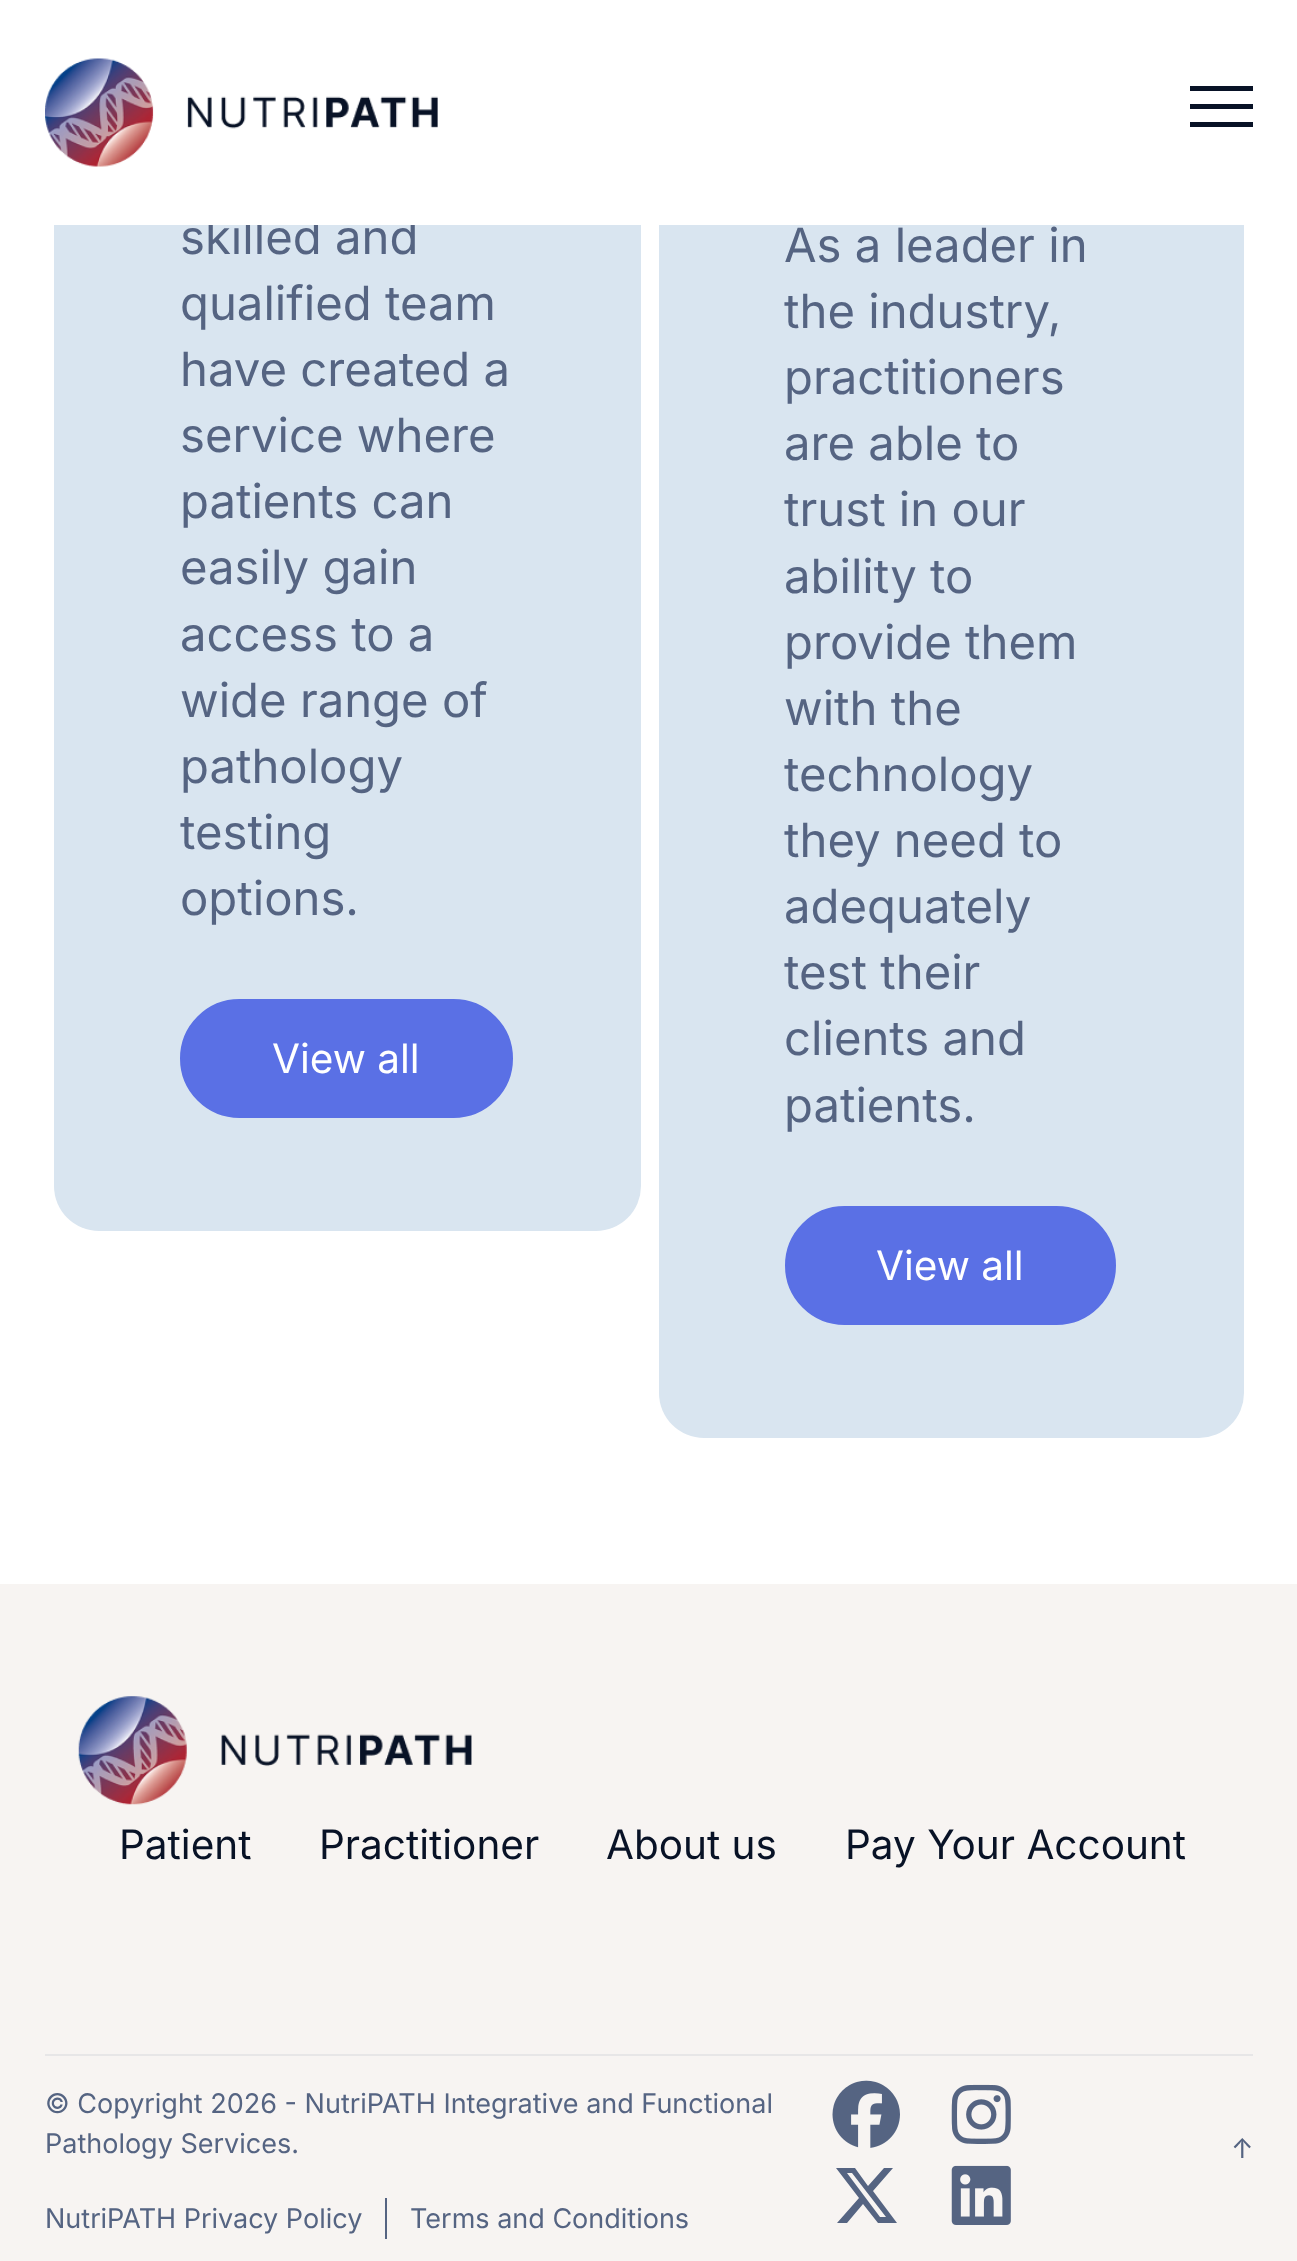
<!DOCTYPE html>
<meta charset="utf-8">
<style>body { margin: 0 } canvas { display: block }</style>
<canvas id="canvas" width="1297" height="2261"></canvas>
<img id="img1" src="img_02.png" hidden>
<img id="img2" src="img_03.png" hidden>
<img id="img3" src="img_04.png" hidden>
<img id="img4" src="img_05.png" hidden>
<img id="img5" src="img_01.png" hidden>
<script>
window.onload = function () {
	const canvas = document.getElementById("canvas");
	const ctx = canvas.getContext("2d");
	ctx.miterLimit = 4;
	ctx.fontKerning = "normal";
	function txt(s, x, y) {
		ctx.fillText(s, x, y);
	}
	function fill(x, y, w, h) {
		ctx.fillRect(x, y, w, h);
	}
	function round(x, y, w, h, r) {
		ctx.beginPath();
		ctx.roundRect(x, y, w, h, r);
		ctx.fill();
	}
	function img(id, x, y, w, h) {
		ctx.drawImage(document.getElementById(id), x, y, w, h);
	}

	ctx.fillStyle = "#F7F4F2";
	fill(0, 0, 1297, 2261);
	ctx.fillStyle = "#FFFFFF";
	fill(0, 225, 1297, 1359);
	ctx.fillStyle = "#D9E5F0";
	round(54, -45, 587, 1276, 45);
	ctx.fillStyle = "#5A70E5";
	ctx.beginPath();
	ctx.roundRect(181, 1000, 331, 117, 58.5);
	ctx.fill();
	ctx.strokeStyle = "#5A70E5";
	ctx.lineWidth = 2;
	ctx.stroke();
	ctx.fillStyle = "#D9E5F0";
	round(659, -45, 585, 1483, 45);
	ctx.fillStyle = "#5A70E5";
	ctx.beginPath();
	ctx.roundRect(786, 1207, 329, 117, 58.5);
	ctx.fill();
	ctx.stroke();
	img("img1", 78, 1696, 394, 109);
	ctx.fillStyle = "#E7E6E7";
	fill(45, 2054, 1208, 2);
	ctx.fillStyle = "#556482";
	fill(385, 2198, 2, 41);
	img("img2", 832, 2080, 68, 68);
	img("img3", 951, 2084, 60, 60);
	ctx.beginPath();
	ctx.moveTo(884, 2168);
	ctx.lineTo(893, 2168);
	ctx.lineTo(884, 2168);
	ctx.lineTo(893, 2168);
	ctx.lineTo(873, 2191);
	ctx.lineTo(897, 2223);
	ctx.lineTo(878, 2223);
	ctx.lineTo(863, 2204);
	ctx.lineTo(847, 2223);
	ctx.lineTo(837, 2223);
	ctx.lineTo(859, 2198);
	ctx.lineTo(836, 2168);
	ctx.lineTo(855, 2168);
	ctx.lineTo(868, 2186);
	ctx.closePath();
	ctx.moveTo(880, 2217);
	ctx.lineTo(886, 2217);
	ctx.lineTo(880, 2217);
	ctx.lineTo(886, 2217);
	ctx.lineTo(852, 2173);
	ctx.lineTo(847, 2173);
	ctx.closePath();
	ctx.fill();
	img("img4", 951, 2165, 60, 60);
	ctx.font = "47.25px Inter";
	txt("skilled and", 180, 254);
	ctx.fillStyle = "#FFFFFF";
	fill(0, 0, 1297, 225);
	ctx.fillStyle = "#081226";
	fill(1190, 122, 63, 5);
	fill(1190, 104, 63, 5);
	fill(1190, 86, 63, 5);
	img("img5", 45, 58, 393, 109);
	ctx.fillStyle = "#556482";
	txt("qualified team", 180, 320);
	txt("have created a", 180, 386);
	txt("service where", 180, 452);
	txt("patients can", 180, 518);
	txt("easily gain", 180, 584);
	txt("access to a", 180, 651);
	txt("wide range of", 180, 717);
	txt("pathology", 180, 783);
	txt("testing", 180, 849);
	txt("options.", 180, 915);
	ctx.font = "40.5px Inter";
	ctx.fillStyle = "#FFFFFF";
	txt("View all", 272, 1073);
	ctx.font = "47.25px Inter";
	ctx.fillStyle = "#556482";
	txt("As a leader in", 784, 262);
	txt("the industry,", 784, 328);
	txt("practitioners", 784, 394);
	txt("are able to", 784, 460);
	txt("trust in our", 784, 526);
	txt("ability to", 784, 593);
	txt("provide them", 784, 659);
	txt("with the", 784, 725);
	txt("technology", 784, 791);
	txt("they need to", 784, 857);
	txt("adequately", 784, 923);
	txt("test their", 784, 989);
	txt("clients and", 784, 1055);
	txt("patients.", 784, 1122);
	ctx.font = "40.5px Inter";
	ctx.fillStyle = "#FFFFFF";
	txt("View all", 876, 1280);
	ctx.fillStyle = "#081226";
	txt("Patient", 119, 1859);
	txt("Practitioner", 319, 1859);
	txt("About us", 606, 1859);
	txt("Pay Your Account", 845, 1859);
	ctx.font = "27px Inter";
	ctx.fillStyle = "#556482";
	txt("© Copyright 2026 - NutriPATH Integrative and Functional", 45, 2113);
	txt("Pathology Services.", 45, 2153);
	txt("NutriPATH Privacy Policy", 45, 2228);
	txt("Terms and Conditions", 410, 2228);
	txt("↑", 1231, 2158);
};
</script>
